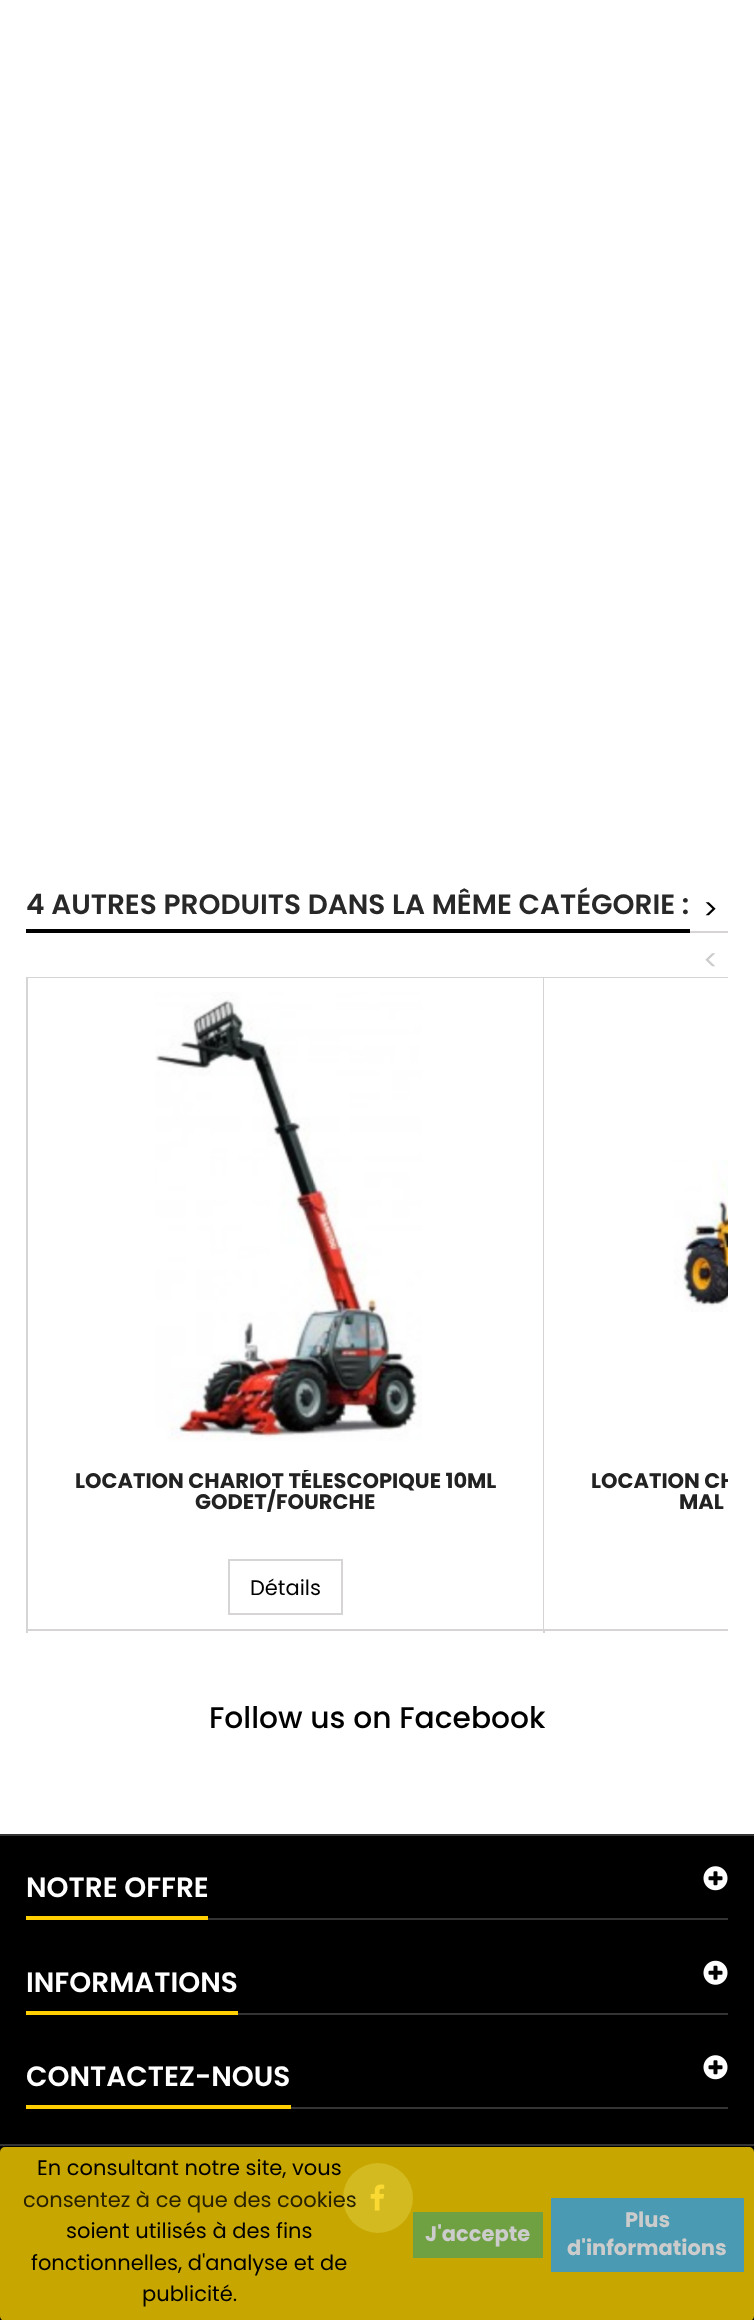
<!DOCTYPE html>
<meta charset="utf-8">
<style>body { margin: 0 } canvas { display: block }</style>
<canvas id="canvas" width="754" height="2320"></canvas>
<img id="img1" src="img_01.png" hidden>
<img id="img2" src="img_02.png" hidden>
<img id="img3" src="img_03.png" hidden>
<img id="img4" src="img_04.png" hidden>
<img id="img5" src="img_05.png" hidden>
<script>
window.onload = function () {
	const canvas = document.getElementById("canvas");
	const ctx = canvas.getContext("2d");
	ctx.miterLimit = 4;
	ctx.fontKerning = "normal";
	function txt(s, x, y) {
		ctx.fillText(s, x, y);
	}
	function fill(x, y, w, h) {
		ctx.fillRect(x, y, w, h);
	}
	function img(id, x, y, w, h) {
		ctx.drawImage(document.getElementById(id), x, y, w, h);
	}

	ctx.fillStyle = "#FFFFFF";
	fill(0, 0, 754, 2320);
	ctx.fillStyle = "#D6D4D4";
	fill(690, 931, 38, 2);
	ctx.fillStyle = "#000000";
	fill(26, 929, 664, 4);
	ctx.fillStyle = "#D6D4D4";
	fill(26, 977, 702, 1);
	fill(26, 977, 2, 656);
	fill(28, 1629, 515, 2);
	img("img1", 155, 992, 267, 449);
	ctx.strokeStyle = "#D6D4D4";
	ctx.lineWidth = 2;
	ctx.strokeRect(229, 1560, 113, 54);
	fill(543, 977, 2, 656);
	ctx.fillStyle = "#FFFFFF";
	fill(544, 978, 1, 651);
	ctx.fillStyle = "#D6D4D4";
	fill(544, 1629, 184, 2);
	img("img2", 674, 1160, 54, 152);
	ctx.fillStyle = "#000000";
	fill(0, 1836, 754, 484);
	ctx.fillStyle = "#343434";
	fill(0, 1834, 754, 2);
	fill(208, 1918, 520, 2);
	ctx.fillStyle = "#FFCF00";
	fill(26, 1916, 182, 4);
	img("img3", 703, 1866, 25, 25);
	ctx.fillStyle = "#343434";
	fill(238, 2013, 490, 2);
	ctx.fillStyle = "#FFCF00";
	fill(26, 2011, 212, 4);
	img("img4", 703, 1960, 25, 25);
	ctx.fillStyle = "#343434";
	fill(291, 2107, 437, 2);
	ctx.fillStyle = "#FFCF00";
	fill(26, 2105, 265, 4);
	img("img3", 703, 2055, 25, 25);
	ctx.fillStyle = "#343434";
	fill(0, 2144, 754, 2);
	ctx.fillStyle = "#3765A3";
	ctx.beginPath();
	ctx.arc(378, 2198, 35, 0, Math.PI * 2);
	ctx.fill();
	img("img5", 370, 2184, 15, 27);
	ctx.fillStyle = "rgba(250, 208, 0, 0.8)";
	ctx.beginPath();
	ctx.roundRect(1, 2148, 752, 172, 4);
	ctx.fill();
	ctx.strokeStyle = "#C8A600";
	ctx.stroke();
	ctx.fillStyle = "#6FA143";
	fill(413, 2212, 130, 46);
	ctx.fillStyle = "#499AB2";
	fill(551, 2198, 193, 74);
	ctx.font = "600 28px Poppins";
	ctx.fillStyle = "#282828";
	txt("4 AUTRES PRODUITS DANS LA MÊME CATÉGORIE :", 26, 914);
	ctx.font = "28px Poppins";
	ctx.fillStyle = "#000000";
	txt(">", 703, 919);
	ctx.fillStyle = "#CCCCCC";
	txt("<", 703, 970);
	ctx.save();
	ctx.beginPath();
	ctx.rect(42, 1470, 487, 42);
	ctx.clip();
	ctx.font = "bold 21px Poppins";
	ctx.fillStyle = "#222222";
	txt("LOCATION CHARIOT TÉLESCOPIQUE 10ML", 75, 1488);
	txt("GODET/FOURCHE", 195, 1509);
	ctx.restore();
	ctx.font = "21px Poppins";
	ctx.fillStyle = "#000000";
	txt("Détails", 250, 1595);
	ctx.save();
	ctx.beginPath();
	ctx.rect(558, 1470, 170, 42);
	ctx.clip();
	ctx.font = "bold 21px Poppins";
	ctx.fillStyle = "#222222";
	txt("LOCATION CH", 591, 1488);
	ctx.restore();
	ctx.font = "bold 21px Poppins";
	ctx.fillStyle = "#222222";
	txt("MAL", 679, 1509);
	ctx.font = "500 29.75px Poppins";
	ctx.fillStyle = "#000000";
	txt("Follow us on Facebook", 209, 1728);
	ctx.font = "600 28px Poppins";
	ctx.fillStyle = "#FFFFFF";
	txt("NOTRE OFFRE", 26, 1897);
	txt("INFORMATIONS", 26, 1992);
	txt("CONTACTEZ-NOUS", 26, 2086);
	ctx.font = "21px Poppins";
	ctx.fillStyle = "#000000";
	txt("En consultant notre site, vous", 37, 2175);
	ctx.fillStyle = "#282100";
	txt("consentez à ce que des cookies", 23, 2207);
	ctx.fillStyle = "#000000";
	txt("soient utilisés à des fins", 66, 2238);
	txt("fonctionnelles, d'analyse et de", 31, 2270);
	txt("publicité.", 142, 2301);
	ctx.font = "bold 21px Poppins";
	ctx.fillStyle = "#CCCCCC";
	txt("J'accepte", 425, 2241);
	txt("Plus", 625, 2227);
	txt("d'informations", 567, 2255);
};
</script>
